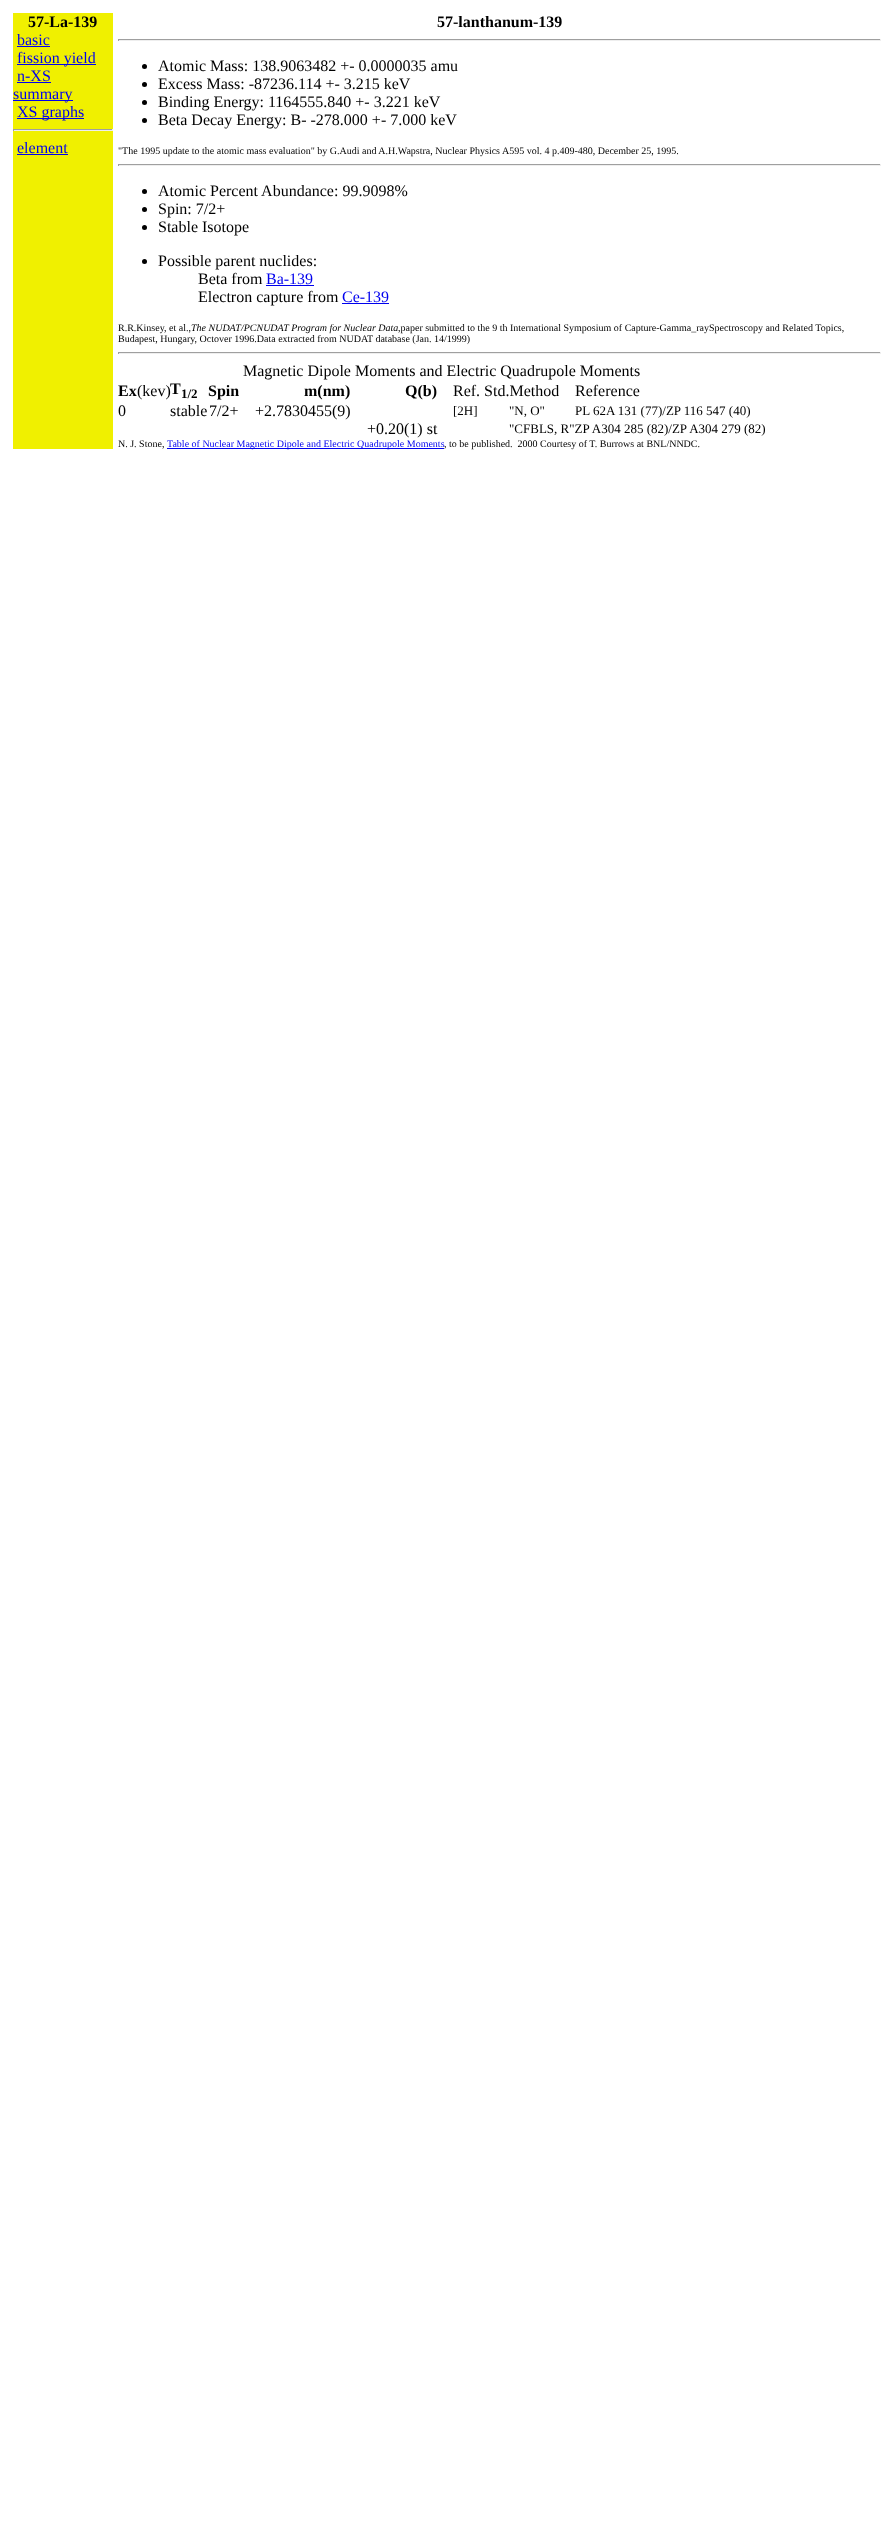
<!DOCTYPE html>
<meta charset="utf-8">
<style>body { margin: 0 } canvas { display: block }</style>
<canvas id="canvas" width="894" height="2534"></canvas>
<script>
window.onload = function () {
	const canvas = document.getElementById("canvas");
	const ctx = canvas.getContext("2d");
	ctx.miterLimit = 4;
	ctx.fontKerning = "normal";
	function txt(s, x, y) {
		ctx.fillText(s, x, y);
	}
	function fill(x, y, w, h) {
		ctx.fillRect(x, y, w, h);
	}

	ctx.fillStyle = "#FFFFFF";
	fill(0, 0, 894, 2534);
	ctx.fillStyle = "#F0F000";
	fill(13, 13, 100, 436);
	ctx.fillStyle = "#0000EE";
	fill(17, 46, 33, 1);
	fill(17, 64, 79, 1);
	fill(17, 82, 34, 1);
	fill(13, 100, 60, 1);
	fill(17, 118, 67, 1);
	ctx.fillStyle = "#9F9F9F";
	fill(13, 129, 100, 1);
	ctx.fillStyle = "#EEEEEE";
	fill(112, 129, 1, 2);
	fill(13, 130, 100, 1);
	ctx.fillStyle = "#9F9F9F";
	fill(13, 129, 1, 2);
	ctx.fillStyle = "#0000EE";
	fill(17, 154, 51, 1);
	ctx.fillStyle = "#9F9F9F";
	fill(118, 39, 763, 1);
	ctx.fillStyle = "#EEEEEE";
	fill(880, 39, 1, 2);
	fill(118, 40, 763, 1);
	ctx.fillStyle = "#9F9F9F";
	fill(118, 39, 1, 2);
	ctx.fillStyle = "#000000";
	ctx.beginPath();
	ctx.arc(144.5, 66.5, 2.5, 0, Math.PI * 2);
	ctx.fill();
	ctx.beginPath();
	ctx.arc(144.5, 84.5, 2.5, 0, Math.PI * 2);
	ctx.fill();
	ctx.beginPath();
	ctx.arc(144.5, 102.5, 2.5, 0, Math.PI * 2);
	ctx.fill();
	ctx.beginPath();
	ctx.arc(144.5, 120.5, 2.5, 0, Math.PI * 2);
	ctx.fill();
	ctx.fillStyle = "#9F9F9F";
	fill(118, 164, 763, 1);
	ctx.fillStyle = "#EEEEEE";
	fill(880, 164, 1, 2);
	fill(118, 165, 763, 1);
	ctx.fillStyle = "#9F9F9F";
	fill(118, 164, 1, 2);
	ctx.fillStyle = "#000000";
	ctx.beginPath();
	ctx.arc(144.5, 191.5, 2.5, 0, Math.PI * 2);
	ctx.fill();
	ctx.beginPath();
	ctx.arc(144.5, 209.5, 2.5, 0, Math.PI * 2);
	ctx.fill();
	ctx.beginPath();
	ctx.arc(144.5, 227.5, 2.5, 0, Math.PI * 2);
	ctx.fill();
	ctx.beginPath();
	ctx.arc(144.5, 261.5, 2.5, 0, Math.PI * 2);
	ctx.fill();
	ctx.fillStyle = "#0000EE";
	fill(266, 285, 48, 1);
	fill(342, 303, 47, 1);
	ctx.fillStyle = "#9F9F9F";
	fill(118, 352, 763, 1);
	ctx.fillStyle = "#EEEEEE";
	fill(880, 352, 1, 2);
	fill(118, 353, 763, 1);
	ctx.fillStyle = "#9F9F9F";
	fill(118, 352, 1, 2);
	ctx.fillStyle = "#0000EE";
	fill(167, 448, 277, 1);
	ctx.font = "bold 16px Liberation Serif";
	ctx.fillStyle = "#000000";
	txt("57-La-139", 28, 27);
	ctx.font = "16px Liberation Serif";
	ctx.fillStyle = "#0000EE";
	txt("basic", 17, 45);
	txt("fission yield", 17, 63);
	txt("n-XS", 17, 81);
	txt("summary", 13, 99);
	txt("XS graphs", 17, 117);
	txt("element", 17, 153);
	ctx.font = "bold 16px Liberation Serif";
	ctx.fillStyle = "#000000";
	txt("57-lanthanum-139", 437, 27);
	ctx.font = "16px Liberation Serif";
	txt("Atomic Mass: 138.9063482 +- 0.0000035 amu", 158, 71);
	txt("Excess Mass: -87236.114 +- 3.215 keV", 158, 89);
	txt("Binding Energy: 1164555.840 +- 3.221 keV", 158, 107);
	txt("Beta Decay Energy: B- -278.000 +- 7.000 keV", 158, 125);
	ctx.font = "10px Liberation Serif";
	txt("\"The 1995 update to the atomic mass evaluation\" by G.Audi and A.H.Wapstra, Nuclear Physics A595 vol. 4 p.409-480, December 25, 1995.", 118, 154);
	ctx.font = "16px Liberation Serif";
	txt("Atomic Percent Abundance: 99.9098%", 158, 196);
	txt("Spin: 7/2+", 158, 214);
	txt("Stable Isotope", 158, 232);
	txt("Possible parent nuclides:", 158, 266);
	txt("Beta from", 198, 284);
	ctx.fillStyle = "#0000EE";
	txt("Ba-139", 266, 284);
	ctx.fillStyle = "#000000";
	txt("Electron capture from", 198, 302);
	ctx.fillStyle = "#0000EE";
	txt("Ce-139", 342, 302);
	ctx.font = "10px Liberation Serif";
	ctx.fillStyle = "#000000";
	txt("R.R.Kinsey, et al.,", 118, 331);
	ctx.font = "italic 10px Liberation Serif";
	txt("The NUDAT/PCNUDAT Program for Nuclear Data", 191, 331);
	ctx.font = "10px Liberation Serif";
	txt(",paper submitted to the 9 th International Symposium of Capture-Gamma_raySpectroscopy and Related Topics,", 398, 331);
	txt("Budapest, Hungary, Octover 1996.Data extracted from NUDAT database (Jan. 14/1999)", 118, 342);
	ctx.font = "16px Liberation Serif";
	txt("Magnetic Dipole Moments and Electric Quadrupole Moments", 243, 376);
	ctx.font = "bold 16px Liberation Serif";
	txt("Ex", 118, 396);
	ctx.font = "16px Liberation Serif";
	txt("(kev)", 137, 396);
	ctx.font = "bold 16px Liberation Serif";
	txt("T", 170, 394);
	ctx.font = "bold 13px Liberation Serif";
	txt("1/2", 181, 398);
	ctx.font = "bold 16px Liberation Serif";
	txt("Spin", 208, 396);
	txt("m(nm)", 304, 396);
	txt("Q(b)", 405, 396);
	ctx.font = "16px Liberation Serif";
	txt("Ref. Std.Method", 453, 396);
	txt("Reference", 575, 396);
	txt("0", 118, 416);
	txt("stable", 170, 416);
	txt("7/2+", 209, 416);
	txt("+2.7830455(9)", 255, 416);
	ctx.font = "13px Liberation Serif";
	txt("[2H]", 453, 415);
	txt("\"N, O\"", 509, 415);
	txt("PL 62A 131 (77)/ZP 116 547 (40)", 575, 415);
	ctx.font = "16px Liberation Serif";
	txt("+0.20(1) st", 367, 434);
	ctx.font = "13px Liberation Serif";
	txt("\"CFBLS, R\"ZP A304 285 (82)/ZP A304 279 (82)", 509, 433);
	ctx.font = "10px Liberation Serif";
	txt("N. J. Stone,", 118, 447);
	ctx.fillStyle = "#0000EE";
	txt("Table of Nuclear Magnetic Dipole and Electric Quadrupole Moments", 167, 447);
	ctx.fillStyle = "#000000";
	txt(", to be published.  2000 Courtesy of T. Burrows at BNL/NNDC.", 444, 447);
};
</script>
